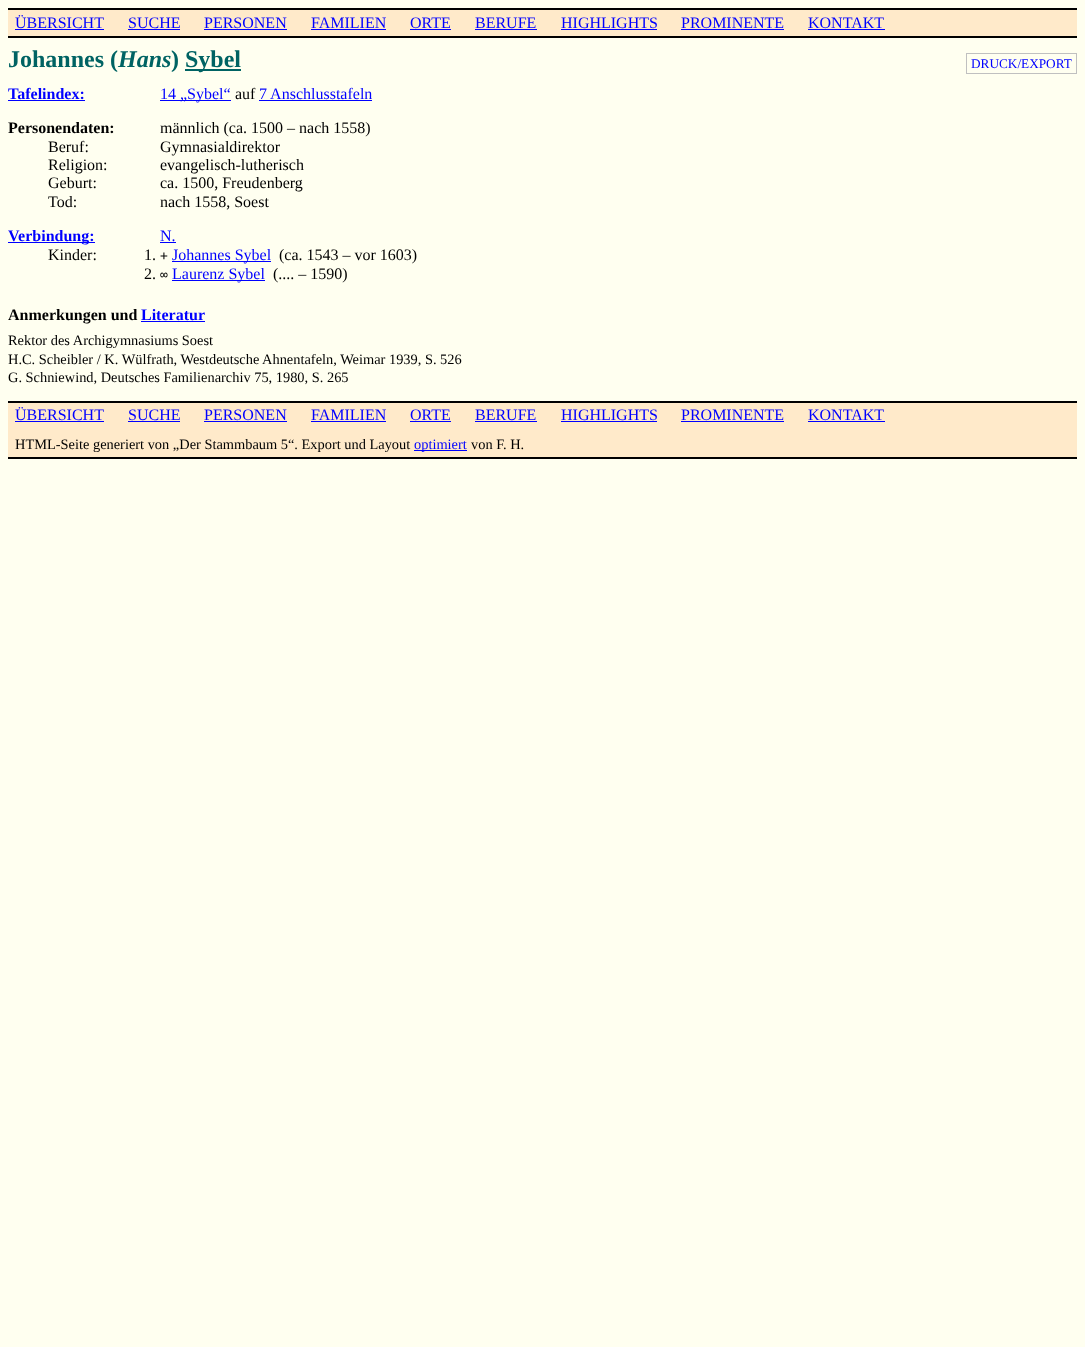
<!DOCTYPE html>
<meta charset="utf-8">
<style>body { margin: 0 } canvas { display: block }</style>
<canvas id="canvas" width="1085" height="1347"></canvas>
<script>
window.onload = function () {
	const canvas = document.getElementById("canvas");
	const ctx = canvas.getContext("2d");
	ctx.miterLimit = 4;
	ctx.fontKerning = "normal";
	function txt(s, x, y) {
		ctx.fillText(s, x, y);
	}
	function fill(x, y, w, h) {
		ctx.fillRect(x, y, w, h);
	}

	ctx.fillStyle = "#FFFFF0";
	fill(0, 0, 1085, 1347);
	ctx.fillStyle = "#FFEACA";
	fill(8, 10, 1069, 26);
	ctx.fillStyle = "#000000";
	fill(8, 8, 1069, 2);
	fill(8, 36, 1069, 2);
	ctx.fillStyle = "#0000FF";
	fill(15, 29, 89, 1);
	fill(128, 29, 52, 1);
	fill(204, 29, 83, 1);
	fill(311, 29, 75, 1);
	fill(410, 29, 41, 1);
	fill(475, 29, 62, 1);
	fill(561, 29, 96, 1);
	fill(681, 29, 103, 1);
	fill(808, 29, 77, 1);
	ctx.fillStyle = "#006363";
	fill(185, 69, 56, 2);
	ctx.strokeStyle = "#C0C0C0";
	ctx.strokeRect(966.5, 53.5, 110, 20);
	ctx.fillStyle = "#0000FF";
	fill(8, 100, 77, 1);
	fill(160, 100, 71, 1);
	fill(259, 100, 113, 1);
	fill(8, 242, 87, 1);
	fill(160, 242, 16, 1);
	fill(172, 261, 99, 1);
	fill(172, 280, 93, 1);
	fill(141, 321, 64, 1);
	ctx.fillStyle = "#FFEACA";
	fill(8, 403, 1069, 54);
	ctx.fillStyle = "#000000";
	fill(8, 401, 1069, 2);
	fill(8, 457, 1069, 2);
	ctx.fillStyle = "#0000FF";
	fill(15, 421, 89, 1);
	fill(128, 421, 52, 1);
	fill(204, 421, 83, 1);
	fill(311, 421, 75, 1);
	fill(410, 421, 41, 1);
	fill(475, 421, 62, 1);
	fill(561, 421, 96, 1);
	fill(681, 421, 103, 1);
	fill(808, 421, 77, 1);
	fill(414, 450, 53, 1);
	ctx.font = "16px Liberation Serif";
	txt("ÜBERSICHT", 15, 28);
	txt("SUCHE", 128, 28);
	txt("PERSONEN", 204, 28);
	txt("FAMILIEN", 311, 28);
	txt("ORTE", 410, 28);
	txt("BERUFE", 475, 28);
	txt("HIGHLIGHTS", 561, 28);
	txt("PROMINENTE", 681, 28);
	txt("KONTAKT", 808, 28);
	ctx.font = "bold 24px Liberation Serif";
	ctx.fillStyle = "#006363";
	txt("Johannes (", 8, 67);
	ctx.font = "italic bold 24px Liberation Serif";
	txt("Hans", 118, 67);
	ctx.font = "bold 24px Liberation Serif";
	txt(")", 171, 67);
	txt("Sybel", 185, 67);
	ctx.font = "13.25px Liberation Serif";
	ctx.fillStyle = "#0000FF";
	txt("DRUCK/EXPORT", 971, 68);
	ctx.font = "bold 16px Liberation Serif";
	txt("Tafelindex:", 8, 99);
	ctx.font = "16px Liberation Serif";
	txt("14 „Sybel“", 160, 99);
	ctx.fillStyle = "#000000";
	txt("auf", 235, 99);
	ctx.fillStyle = "#0000FF";
	txt("7 Anschlusstafeln", 259, 99);
	ctx.font = "bold 16px Liberation Serif";
	ctx.fillStyle = "#000000";
	txt("Personendaten:", 8, 133);
	ctx.font = "16px Liberation Serif";
	txt("männlich (ca. 1500 – nach 1558)", 160, 133);
	txt("Beruf:", 48, 152);
	txt("Gymnasialdirektor", 160, 152);
	txt("Religion:", 48, 170);
	txt("evangelisch-lutherisch", 160, 170);
	txt("Geburt:", 48, 188);
	txt("ca. 1500, Freudenberg", 160, 188);
	txt("Tod:", 48, 207);
	txt("nach 1558, Soest", 160, 207);
	ctx.font = "bold 16px Liberation Serif";
	ctx.fillStyle = "#0000FF";
	txt("Verbindung:", 8, 241);
	ctx.font = "16px Liberation Serif";
	txt("N.", 160, 241);
	ctx.fillStyle = "#000000";
	txt("Kinder:", 48, 260);
	txt("1.", 144, 260);
	ctx.font = "13px DejaVu Sans Mono";
	txt("+", 160, 260);
	ctx.font = "16px Liberation Serif";
	ctx.fillStyle = "#0000FF";
	txt("Johannes Sybel", 172, 260);
	ctx.fillStyle = "#000000";
	txt("(ca. 1543 – vor 1603)", 279, 260);
	txt("2.", 144, 279);
	ctx.font = "13px DejaVu Sans Mono";
	txt("∞", 160, 279);
	ctx.font = "16px Liberation Serif";
	ctx.fillStyle = "#0000FF";
	txt("Laurenz Sybel", 172, 279);
	ctx.fillStyle = "#000000";
	txt("(.... – 1590)", 273, 279);
	ctx.font = "bold 16px Liberation Serif";
	txt("Anmerkungen und", 8, 320);
	ctx.fillStyle = "#0000FF";
	txt("Literatur", 141, 320);
	ctx.font = "14.4px Liberation Serif";
	ctx.fillStyle = "#000000";
	txt("Rektor des Archigymnasiums Soest", 8, 345);
	txt("H.C. Scheibler / K. Wülfrath, Westdeutsche Ahnentafeln, Weimar 1939, S. 526", 8, 364);
	txt("G. Schniewind, Deutsches Familienarchiv 75, 1980, S. 265", 8, 382);
	ctx.font = "16px Liberation Serif";
	ctx.fillStyle = "#0000FF";
	txt("ÜBERSICHT", 15, 420);
	txt("SUCHE", 128, 420);
	txt("PERSONEN", 204, 420);
	txt("FAMILIEN", 311, 420);
	txt("ORTE", 410, 420);
	txt("BERUFE", 475, 420);
	txt("HIGHLIGHTS", 561, 420);
	txt("PROMINENTE", 681, 420);
	txt("KONTAKT", 808, 420);
	ctx.font = "14.4px Liberation Serif";
	ctx.fillStyle = "#000000";
	txt("HTML-Seite generiert von „Der Stammbaum 5“. Export und Layout", 15, 449);
	ctx.fillStyle = "#0000FF";
	txt("optimiert", 414, 449);
	ctx.fillStyle = "#000000";
	txt("von F. H.", 471, 449);
};
</script>
